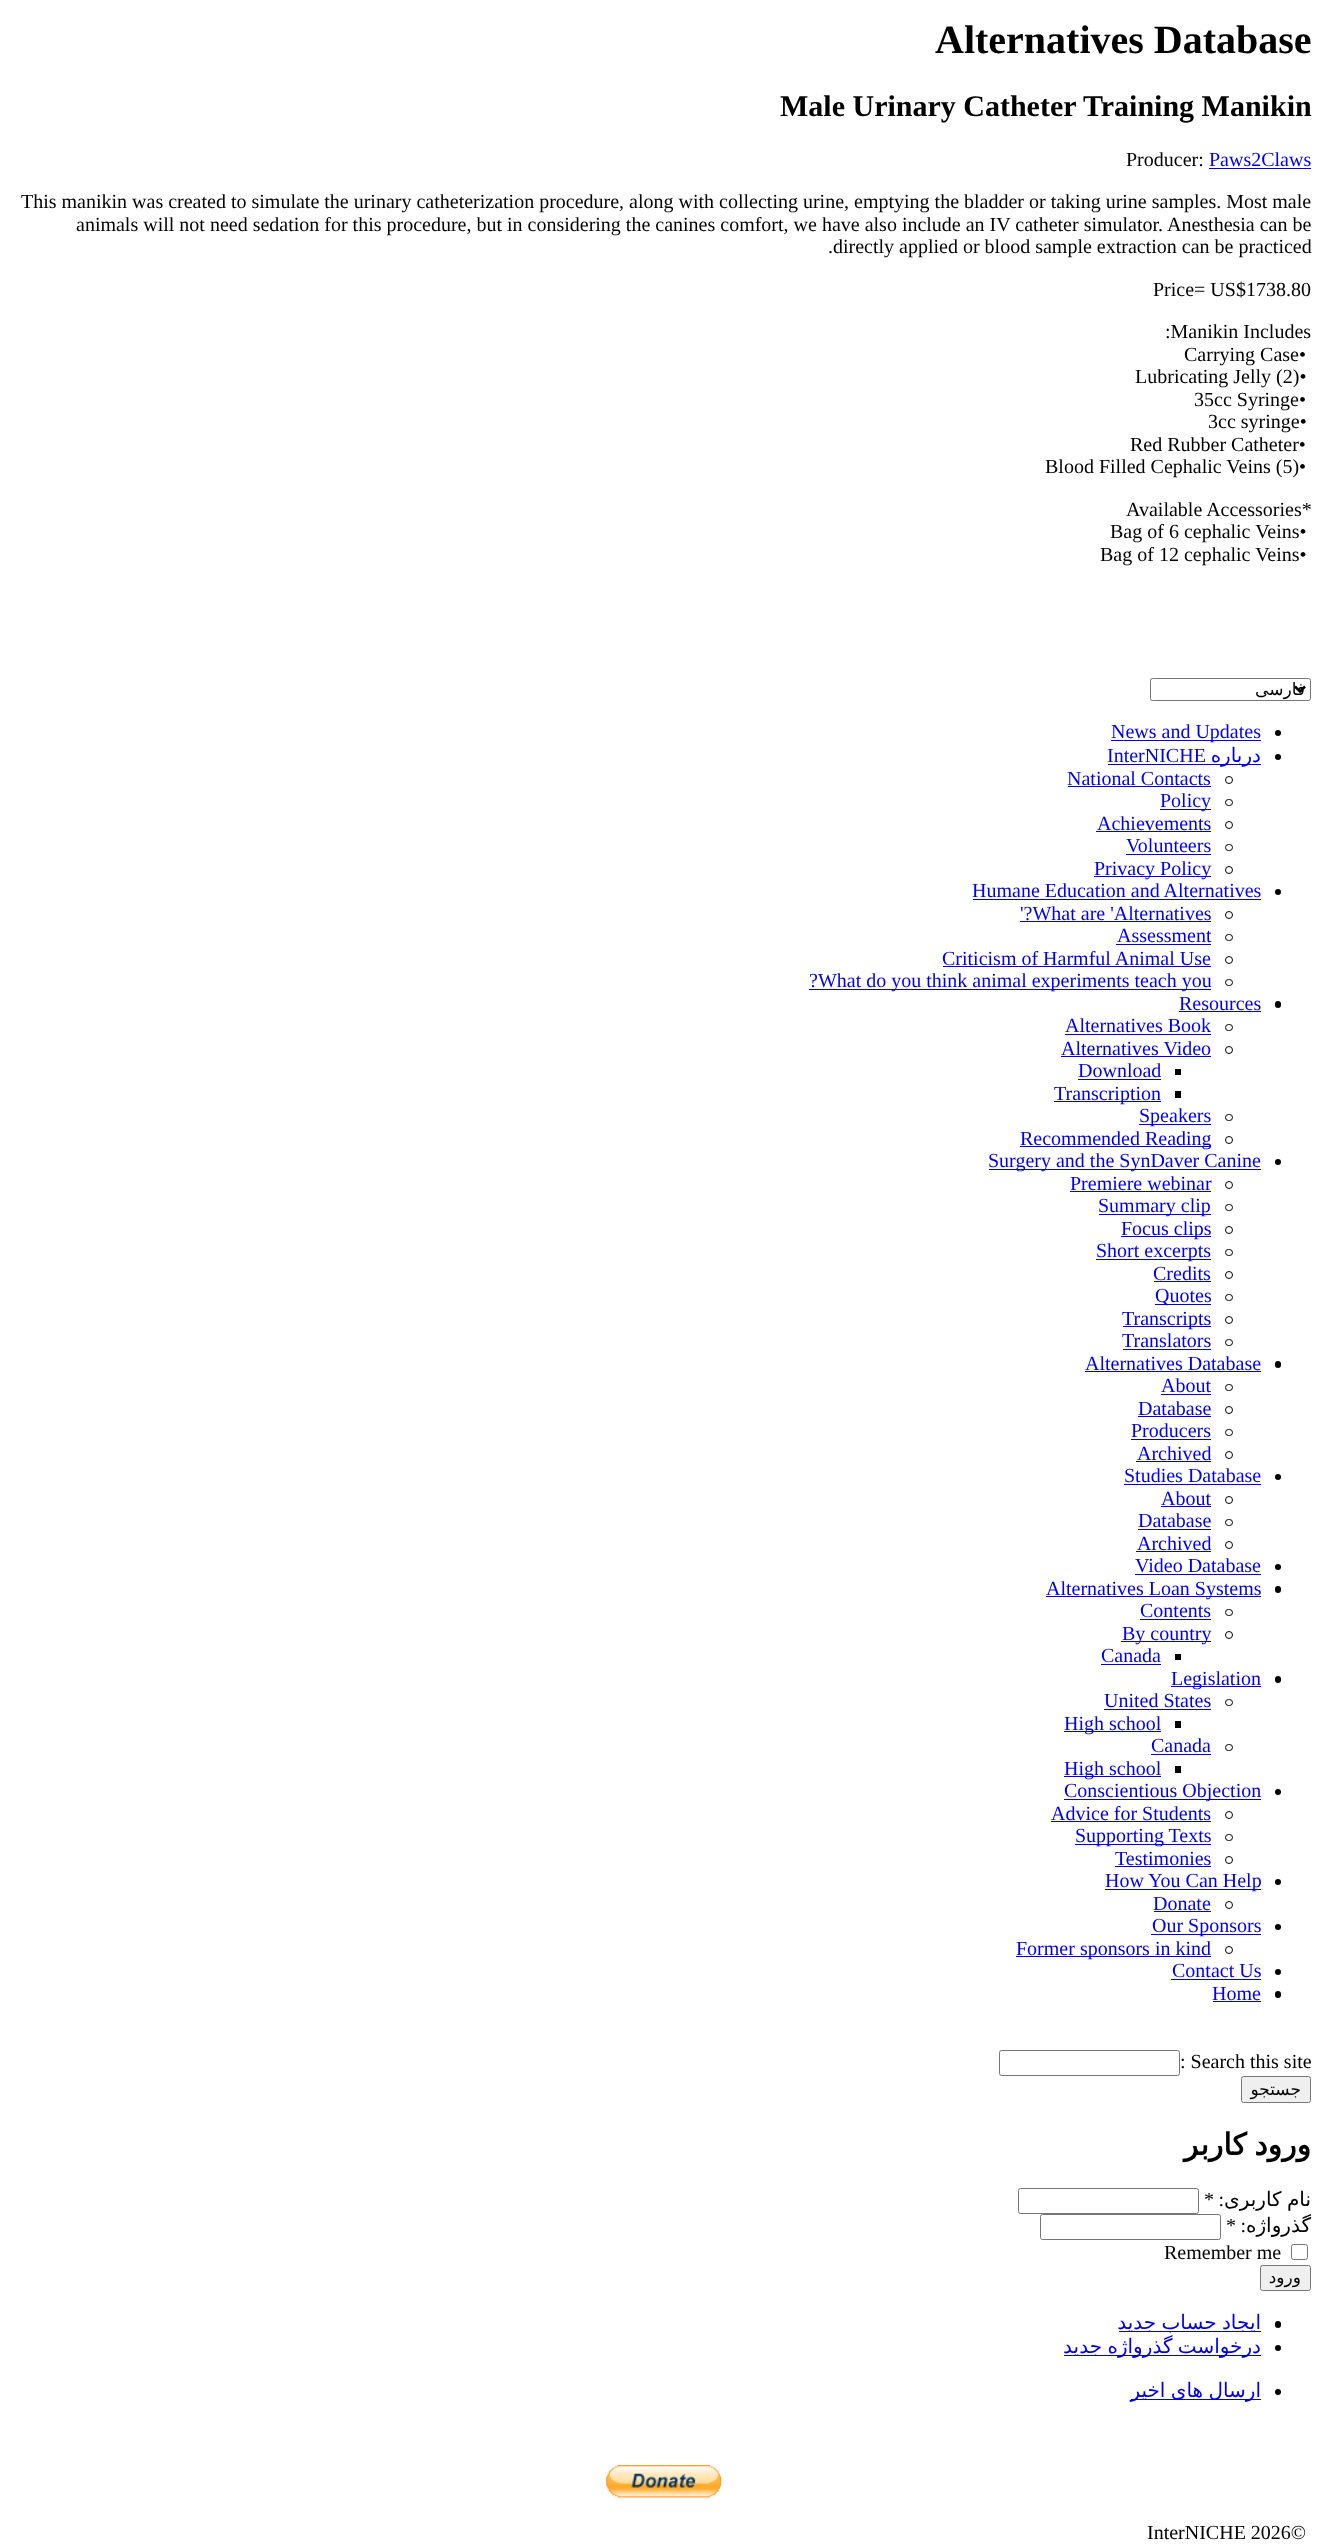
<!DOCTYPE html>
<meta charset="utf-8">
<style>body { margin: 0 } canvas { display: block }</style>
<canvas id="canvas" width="1321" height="2547"></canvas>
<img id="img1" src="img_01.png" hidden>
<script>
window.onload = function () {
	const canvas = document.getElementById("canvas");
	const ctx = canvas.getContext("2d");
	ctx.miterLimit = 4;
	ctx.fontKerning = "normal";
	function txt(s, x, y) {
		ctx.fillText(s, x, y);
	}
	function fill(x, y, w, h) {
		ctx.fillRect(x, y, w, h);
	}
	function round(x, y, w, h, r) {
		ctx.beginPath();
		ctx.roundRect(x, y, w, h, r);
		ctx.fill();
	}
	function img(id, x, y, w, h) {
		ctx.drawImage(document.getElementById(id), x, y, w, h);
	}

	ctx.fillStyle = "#FFFFFF";
	fill(0, 0, 1321, 2547);
	ctx.fillStyle = "#0000EE";
	fill(1209, 168, 102, 1);
	ctx.beginPath();
	ctx.roundRect(1150.5, 678.5, 160, 22, 2);
	ctx.strokeStyle = "#767676";
	ctx.stroke();
	ctx.beginPath();
	ctx.moveTo(1295, 686.5);
	ctx.lineTo(1300, 691.5);
	ctx.lineTo(1305, 686.5);
	ctx.strokeStyle = "#000000";
	ctx.lineWidth = 2.5;
	ctx.stroke();
	fill(1111, 740, 150, 1);
	ctx.fillStyle = "#000000";
	ctx.beginPath();
	ctx.arc(1278, 733, 3, 0, Math.PI * 2);
	ctx.fill();
	ctx.fillStyle = "#0000EE";
	fill(1108, 764, 153, 1);
	ctx.fillStyle = "#000000";
	ctx.beginPath();
	ctx.arc(1278, 757, 3, 0, Math.PI * 2);
	ctx.fill();
	ctx.fillStyle = "#0000EE";
	fill(1068, 786, 143, 1);
	ctx.beginPath();
	ctx.arc(1229, 780, 3.5, 0, Math.PI * 2);
	ctx.lineWidth = 1;
	ctx.stroke();
	fill(1160, 809, 51, 1);
	ctx.beginPath();
	ctx.roundRect(1225.5, 799.5, 7, 6, 3);
	ctx.stroke();
	fill(1096, 831, 115, 1);
	ctx.beginPath();
	ctx.arc(1229, 825, 3.5, 0, Math.PI * 2);
	ctx.stroke();
	fill(1126, 854, 85, 1);
	ctx.beginPath();
	ctx.roundRect(1225.5, 844.5, 7, 6, 3);
	ctx.stroke();
	fill(1094, 876, 117, 1);
	ctx.beginPath();
	ctx.arc(1229, 870, 3.5, 0, Math.PI * 2);
	ctx.stroke();
	fill(973, 899, 288, 1);
	ctx.fillStyle = "#000000";
	ctx.beginPath();
	ctx.arc(1278, 892, 3, 0, Math.PI * 2);
	ctx.fill();
	ctx.fillStyle = "#0000EE";
	fill(1020, 921, 191, 1);
	ctx.beginPath();
	ctx.arc(1229, 915, 3.5, 0, Math.PI * 2);
	ctx.stroke();
	fill(1116, 944, 95, 1);
	ctx.beginPath();
	ctx.roundRect(1225.5, 934.5, 7, 6, 3);
	ctx.stroke();
	fill(943, 966, 268, 1);
	ctx.beginPath();
	ctx.arc(1229, 960, 3.5, 0, Math.PI * 2);
	ctx.stroke();
	fill(809, 989, 402, 1);
	ctx.beginPath();
	ctx.roundRect(1225.5, 979.5, 7, 6, 3);
	ctx.stroke();
	fill(1179, 1011, 82, 1);
	ctx.fillStyle = "#000000";
	round(1275, 1001, 6, 7, 3);
	ctx.fillStyle = "#0000EE";
	fill(1065, 1034, 146, 1);
	ctx.beginPath();
	ctx.roundRect(1225.5, 1024.5, 7, 6, 3);
	ctx.stroke();
	fill(1061, 1056, 150, 1);
	ctx.beginPath();
	ctx.arc(1229, 1050, 3.5, 0, Math.PI * 2);
	ctx.stroke();
	fill(1078, 1079, 83, 1);
	ctx.fillStyle = "#000000";
	fill(1175, 1069, 6, 6);
	ctx.fillStyle = "#0000EE";
	fill(1054, 1101, 107, 1);
	ctx.fillStyle = "#000000";
	fill(1175, 1091, 6, 7);
	ctx.fillStyle = "#0000EE";
	fill(1139, 1124, 72, 1);
	ctx.beginPath();
	ctx.roundRect(1225.5, 1114.5, 7, 6, 3);
	ctx.stroke();
	fill(1020, 1146, 191, 1);
	ctx.beginPath();
	ctx.arc(1229, 1140, 3.5, 0, Math.PI * 2);
	ctx.stroke();
	fill(989, 1169, 272, 1);
	ctx.fillStyle = "#000000";
	ctx.beginPath();
	ctx.arc(1278, 1162, 3, 0, Math.PI * 2);
	ctx.fill();
	ctx.fillStyle = "#0000EE";
	fill(1070, 1191, 141, 1);
	ctx.beginPath();
	ctx.arc(1229, 1185, 3.5, 0, Math.PI * 2);
	ctx.stroke();
	fill(1099, 1214, 112, 1);
	ctx.beginPath();
	ctx.roundRect(1225.5, 1204.5, 7, 6, 3);
	ctx.stroke();
	fill(1121, 1236, 90, 1);
	ctx.beginPath();
	ctx.arc(1229, 1230, 3.5, 0, Math.PI * 2);
	ctx.stroke();
	fill(1096, 1259, 115, 1);
	ctx.beginPath();
	ctx.roundRect(1225.5, 1249.5, 7, 6, 3);
	ctx.stroke();
	fill(1154, 1281, 57, 1);
	ctx.beginPath();
	ctx.arc(1229, 1275, 3.5, 0, Math.PI * 2);
	ctx.stroke();
	fill(1155, 1304, 56, 1);
	ctx.beginPath();
	ctx.roundRect(1225.5, 1294.5, 7, 6, 3);
	ctx.stroke();
	fill(1123, 1326, 88, 1);
	ctx.beginPath();
	ctx.arc(1229, 1320, 3.5, 0, Math.PI * 2);
	ctx.stroke();
	fill(1123, 1349, 88, 1);
	ctx.beginPath();
	ctx.roundRect(1225.5, 1339.5, 7, 6, 3);
	ctx.stroke();
	fill(1085, 1371, 176, 1);
	ctx.fillStyle = "#000000";
	round(1275, 1361, 6, 7, 3);
	ctx.fillStyle = "#0000EE";
	fill(1161, 1394, 50, 1);
	ctx.beginPath();
	ctx.roundRect(1225.5, 1384.5, 7, 6, 3);
	ctx.stroke();
	fill(1138, 1416, 73, 1);
	ctx.beginPath();
	ctx.arc(1229, 1410, 3.5, 0, Math.PI * 2);
	ctx.stroke();
	fill(1131, 1439, 80, 1);
	ctx.beginPath();
	ctx.roundRect(1225.5, 1429.5, 7, 6, 3);
	ctx.stroke();
	fill(1136, 1461, 75, 1);
	ctx.beginPath();
	ctx.arc(1229, 1455, 3.5, 0, Math.PI * 2);
	ctx.stroke();
	fill(1124, 1484, 137, 1);
	ctx.fillStyle = "#000000";
	ctx.beginPath();
	ctx.arc(1278, 1477, 3, 0, Math.PI * 2);
	ctx.fill();
	ctx.fillStyle = "#0000EE";
	fill(1161, 1506, 50, 1);
	ctx.beginPath();
	ctx.arc(1229, 1500, 3.5, 0, Math.PI * 2);
	ctx.stroke();
	fill(1138, 1529, 73, 1);
	ctx.beginPath();
	ctx.roundRect(1225.5, 1519.5, 7, 6, 3);
	ctx.stroke();
	fill(1136, 1551, 75, 1);
	ctx.beginPath();
	ctx.arc(1229, 1545, 3.5, 0, Math.PI * 2);
	ctx.stroke();
	fill(1135, 1574, 126, 1);
	ctx.fillStyle = "#000000";
	ctx.beginPath();
	ctx.arc(1278, 1567, 3, 0, Math.PI * 2);
	ctx.fill();
	ctx.fillStyle = "#0000EE";
	fill(1046, 1596, 215, 1);
	ctx.fillStyle = "#000000";
	round(1275, 1586, 6, 7, 3);
	ctx.fillStyle = "#0000EE";
	fill(1140, 1619, 71, 1);
	ctx.beginPath();
	ctx.roundRect(1225.5, 1609.5, 7, 6, 3);
	ctx.stroke();
	fill(1121, 1641, 90, 1);
	ctx.beginPath();
	ctx.arc(1229, 1635, 3.5, 0, Math.PI * 2);
	ctx.stroke();
	fill(1101, 1664, 60, 1);
	ctx.fillStyle = "#000000";
	fill(1175, 1654, 6, 6);
	ctx.fillStyle = "#0000EE";
	fill(1171, 1686, 90, 1);
	ctx.fillStyle = "#000000";
	round(1275, 1676, 6, 7, 3);
	ctx.fillStyle = "#0000EE";
	fill(1104, 1709, 107, 1);
	ctx.beginPath();
	ctx.roundRect(1225.5, 1699.5, 7, 6, 3);
	ctx.stroke();
	fill(1064, 1731, 97, 1);
	ctx.fillStyle = "#000000";
	fill(1175, 1721, 6, 7);
	ctx.fillStyle = "#0000EE";
	fill(1151, 1754, 60, 1);
	ctx.beginPath();
	ctx.roundRect(1225.5, 1744.5, 7, 6, 3);
	ctx.stroke();
	fill(1064, 1776, 97, 1);
	ctx.fillStyle = "#000000";
	fill(1175, 1766, 6, 7);
	ctx.fillStyle = "#0000EE";
	fill(1064, 1799, 197, 1);
	ctx.fillStyle = "#000000";
	ctx.beginPath();
	ctx.arc(1278, 1792, 3, 0, Math.PI * 2);
	ctx.fill();
	ctx.fillStyle = "#0000EE";
	fill(1051, 1821, 160, 1);
	ctx.beginPath();
	ctx.arc(1229, 1815, 3.5, 0, Math.PI * 2);
	ctx.stroke();
	fill(1075, 1844, 136, 1);
	ctx.beginPath();
	ctx.roundRect(1225.5, 1834.5, 7, 6, 3);
	ctx.stroke();
	fill(1115, 1866, 96, 1);
	ctx.beginPath();
	ctx.arc(1229, 1860, 3.5, 0, Math.PI * 2);
	ctx.stroke();
	fill(1105, 1889, 156, 1);
	ctx.fillStyle = "#000000";
	ctx.beginPath();
	ctx.arc(1278, 1882, 3, 0, Math.PI * 2);
	ctx.fill();
	ctx.fillStyle = "#0000EE";
	fill(1154, 1911, 57, 1);
	ctx.beginPath();
	ctx.arc(1229, 1905, 3.5, 0, Math.PI * 2);
	ctx.stroke();
	fill(1151, 1934, 110, 1);
	ctx.fillStyle = "#000000";
	ctx.beginPath();
	ctx.arc(1278, 1927, 3, 0, Math.PI * 2);
	ctx.fill();
	ctx.fillStyle = "#0000EE";
	fill(1016, 1956, 195, 1);
	ctx.beginPath();
	ctx.arc(1229, 1950, 3.5, 0, Math.PI * 2);
	ctx.stroke();
	fill(1171, 1979, 90, 1);
	ctx.fillStyle = "#000000";
	ctx.beginPath();
	ctx.arc(1278, 1972, 3, 0, Math.PI * 2);
	ctx.fill();
	ctx.fillStyle = "#0000EE";
	fill(1213, 2001, 48, 1);
	ctx.fillStyle = "#000000";
	round(1275, 1991, 6, 7, 3);
	ctx.beginPath();
	ctx.roundRect(999.5, 2050.5, 180, 25, 2);
	ctx.strokeStyle = "#767676";
	ctx.stroke();
	ctx.fillStyle = "#EFEFEF";
	ctx.beginPath();
	ctx.roundRect(1241.5, 2076.5, 69, 26, 2);
	ctx.fill();
	ctx.stroke();
	ctx.beginPath();
	ctx.roundRect(1018.5, 2188.5, 180, 25, 2);
	ctx.stroke();
	ctx.beginPath();
	ctx.roundRect(1040.5, 2214.5, 180, 25, 2);
	ctx.stroke();
	ctx.beginPath();
	ctx.roundRect(1291.5, 2244.5, 16, 15, 2);
	ctx.stroke();
	ctx.beginPath();
	ctx.roundRect(1260.5, 2265.5, 50, 25, 2);
	ctx.fill();
	ctx.stroke();
	ctx.fillStyle = "#0000EE";
	fill(1119, 2331, 142, 1);
	ctx.fillStyle = "#000000";
	round(1275, 2321, 6, 7, 3);
	ctx.fillStyle = "#0000EE";
	fill(1064, 2355, 197, 1);
	ctx.fillStyle = "#000000";
	ctx.beginPath();
	ctx.arc(1278, 2348, 3, 0, Math.PI * 2);
	ctx.fill();
	ctx.fillStyle = "#0000EE";
	fill(1131, 2399, 130, 1);
	ctx.fillStyle = "#000000";
	ctx.beginPath();
	ctx.arc(1278, 2392, 3, 0, Math.PI * 2);
	ctx.fill();
	img("img1", 606, 2465, 116, 33);
	ctx.font = "bold 40px Liberation Serif";
	txt("Alternatives Database", 935, 53);
	ctx.font = "bold 30px Liberation Serif";
	txt("Male Urinary Catheter Training Manikin", 780, 116);
	ctx.font = "20px Liberation Serif";
	txt("Producer:", 1126, 166);
	ctx.fillStyle = "#0000EE";
	txt("Paws2Claws", 1209, 166);
	ctx.fillStyle = "#000000";
	txt("This manikin was created to simulate the urinary catheterization procedure, along with collecting urine, emptying the bladder or taking urine samples. Most male", 21, 208);
	txt("animals will not need sedation for this procedure, but in considering the canines comfort, we have also include an IV catheter simulator. Anesthesia can be", 76, 231);
	txt(".directly applied or blood sample extraction can be practiced", 828, 253);
	txt("Price= US$1738.80", 1153, 296);
	txt(":Manikin Includes", 1165, 338);
	txt("Carrying Case•", 1184, 361);
	txt("Lubricating Jelly (2)•", 1135, 383);
	txt("35cc Syringe•", 1194, 406);
	txt("3cc syringe•", 1208, 428);
	txt("Red Rubber Catheter•", 1130, 451);
	txt("Blood Filled Cephalic Veins (5)•", 1045, 473);
	txt("Available Accessories*", 1126, 516);
	txt("Bag of 6 cephalic Veins•", 1110, 538);
	txt("Bag of 12 cephalic Veins•", 1100, 561);
	ctx.direction = "rtl";
	ctx.font = "17px DejaVu Sans";
	txt("فارسی", 1305, 695);
	ctx.direction = "ltr";
	ctx.font = "20px Liberation Serif";
	ctx.fillStyle = "#0000EE";
	txt("News and Updates", 1111, 738);
	txt("InterNICHE", 1107, 762);
	ctx.direction = "rtl";
	ctx.font = "20px DejaVu Sans";
	txt("درباره", 1261, 762);
	ctx.direction = "ltr";
	ctx.font = "20px Liberation Serif";
	txt("National Contacts", 1067, 785);
	txt("Policy", 1160, 807);
	txt("Achievements", 1097, 830);
	txt("Volunteers", 1126, 852);
	txt("Privacy Policy", 1094, 875);
	txt("Humane Education and Alternatives", 972, 897);
	txt("'?What are 'Alternatives", 1020, 920);
	txt("Assessment", 1117, 942);
	txt("Criticism of Harmful Animal Use", 942, 965);
	txt("?What do you think animal experiments teach you", 809, 987);
	txt("Resources", 1179, 1010);
	txt("Alternatives Book", 1065, 1032);
	txt("Alternatives Video", 1061, 1055);
	txt("Download", 1078, 1077);
	txt("Transcription", 1054, 1100);
	txt("Speakers", 1139, 1122);
	txt("Recommended Reading", 1020, 1145);
	txt("Surgery and the SynDaver Canine", 988, 1167);
	txt("Premiere webinar", 1070, 1190);
	txt("Summary clip", 1098, 1212);
	txt("Focus clips", 1121, 1235);
	txt("Short excerpts", 1096, 1257);
	txt("Credits", 1153, 1280);
	txt("Quotes", 1155, 1302);
	txt("Transcripts", 1122, 1325);
	txt("Translators", 1122, 1347);
	txt("Alternatives Database", 1085, 1370);
	txt("About", 1161, 1392);
	txt("Database", 1138, 1415);
	txt("Producers", 1131, 1437);
	txt("Archived", 1137, 1460);
	txt("Studies Database", 1124, 1482);
	txt("About", 1161, 1505);
	txt("Database", 1138, 1527);
	txt("Archived", 1137, 1550);
	txt("Video Database", 1135, 1572);
	txt("Alternatives Loan Systems", 1046, 1595);
	txt("Contents", 1140, 1617);
	txt("By country", 1122, 1640);
	txt("Canada", 1101, 1662);
	txt("Legislation", 1171, 1685);
	txt("United States", 1104, 1707);
	txt("High school", 1064, 1730);
	txt("Canada", 1151, 1752);
	txt("High school", 1064, 1775);
	txt("Conscientious Objection", 1064, 1797);
	txt("Advice for Students", 1051, 1820);
	txt("Supporting Texts", 1075, 1842);
	txt("Testimonies", 1115, 1865);
	txt("How You Can Help", 1105, 1887);
	txt("Donate", 1153, 1910);
	txt("Our Sponsors", 1152, 1932);
	txt("Former sponsors in kind", 1016, 1955);
	txt("Contact Us", 1172, 1977);
	txt("Home", 1212, 2000);
	ctx.fillStyle = "#000000";
	txt(": Search this site", 1180, 2068);
	ctx.direction = "rtl";
	ctx.font = "17px DejaVu Sans";
	txt("جستجو", 1301, 2095);
	ctx.wordSpacing = "-2px";
	ctx.font = "bold 30px DejaVu Sans";
	txt("ورود کاربر", 1311, 2155);
	ctx.wordSpacing = "0px";
	ctx.direction = "ltr";
	ctx.font = "20px Liberation Serif";
	txt("*", 1204, 2206);
	ctx.direction = "rtl";
	txt(":", 1224, 2206);
	ctx.wordSpacing = "-1px";
	ctx.font = "20px DejaVu Sans";
	txt("نام کاربری", 1311, 2206);
	ctx.wordSpacing = "0px";
	ctx.direction = "ltr";
	ctx.font = "20px Liberation Serif";
	txt("*", 1226, 2232);
	ctx.direction = "rtl";
	txt(":", 1246, 2232);
	ctx.font = "20px DejaVu Sans";
	txt("گذرواژه", 1311, 2232);
	ctx.direction = "ltr";
	ctx.font = "20px Liberation Serif";
	txt("Remember me", 1164, 2259);
	ctx.direction = "rtl";
	ctx.font = "17px DejaVu Sans";
	txt("ورود", 1301, 2283);
	ctx.wordSpacing = "-1px";
	ctx.font = "20px DejaVu Sans";
	ctx.fillStyle = "#0000EE";
	txt("ایجاد حساب جدید", 1261, 2329);
	txt("درخواست گذرواژه جدید", 1261, 2353);
	txt("ارسال های اخیر", 1261, 2397);
	ctx.wordSpacing = "0px";
	ctx.direction = "ltr";
	ctx.font = "20px Liberation Serif";
	ctx.fillStyle = "#000000";
	txt("InterNICHE 2026©", 1147, 2539);
};
</script>
